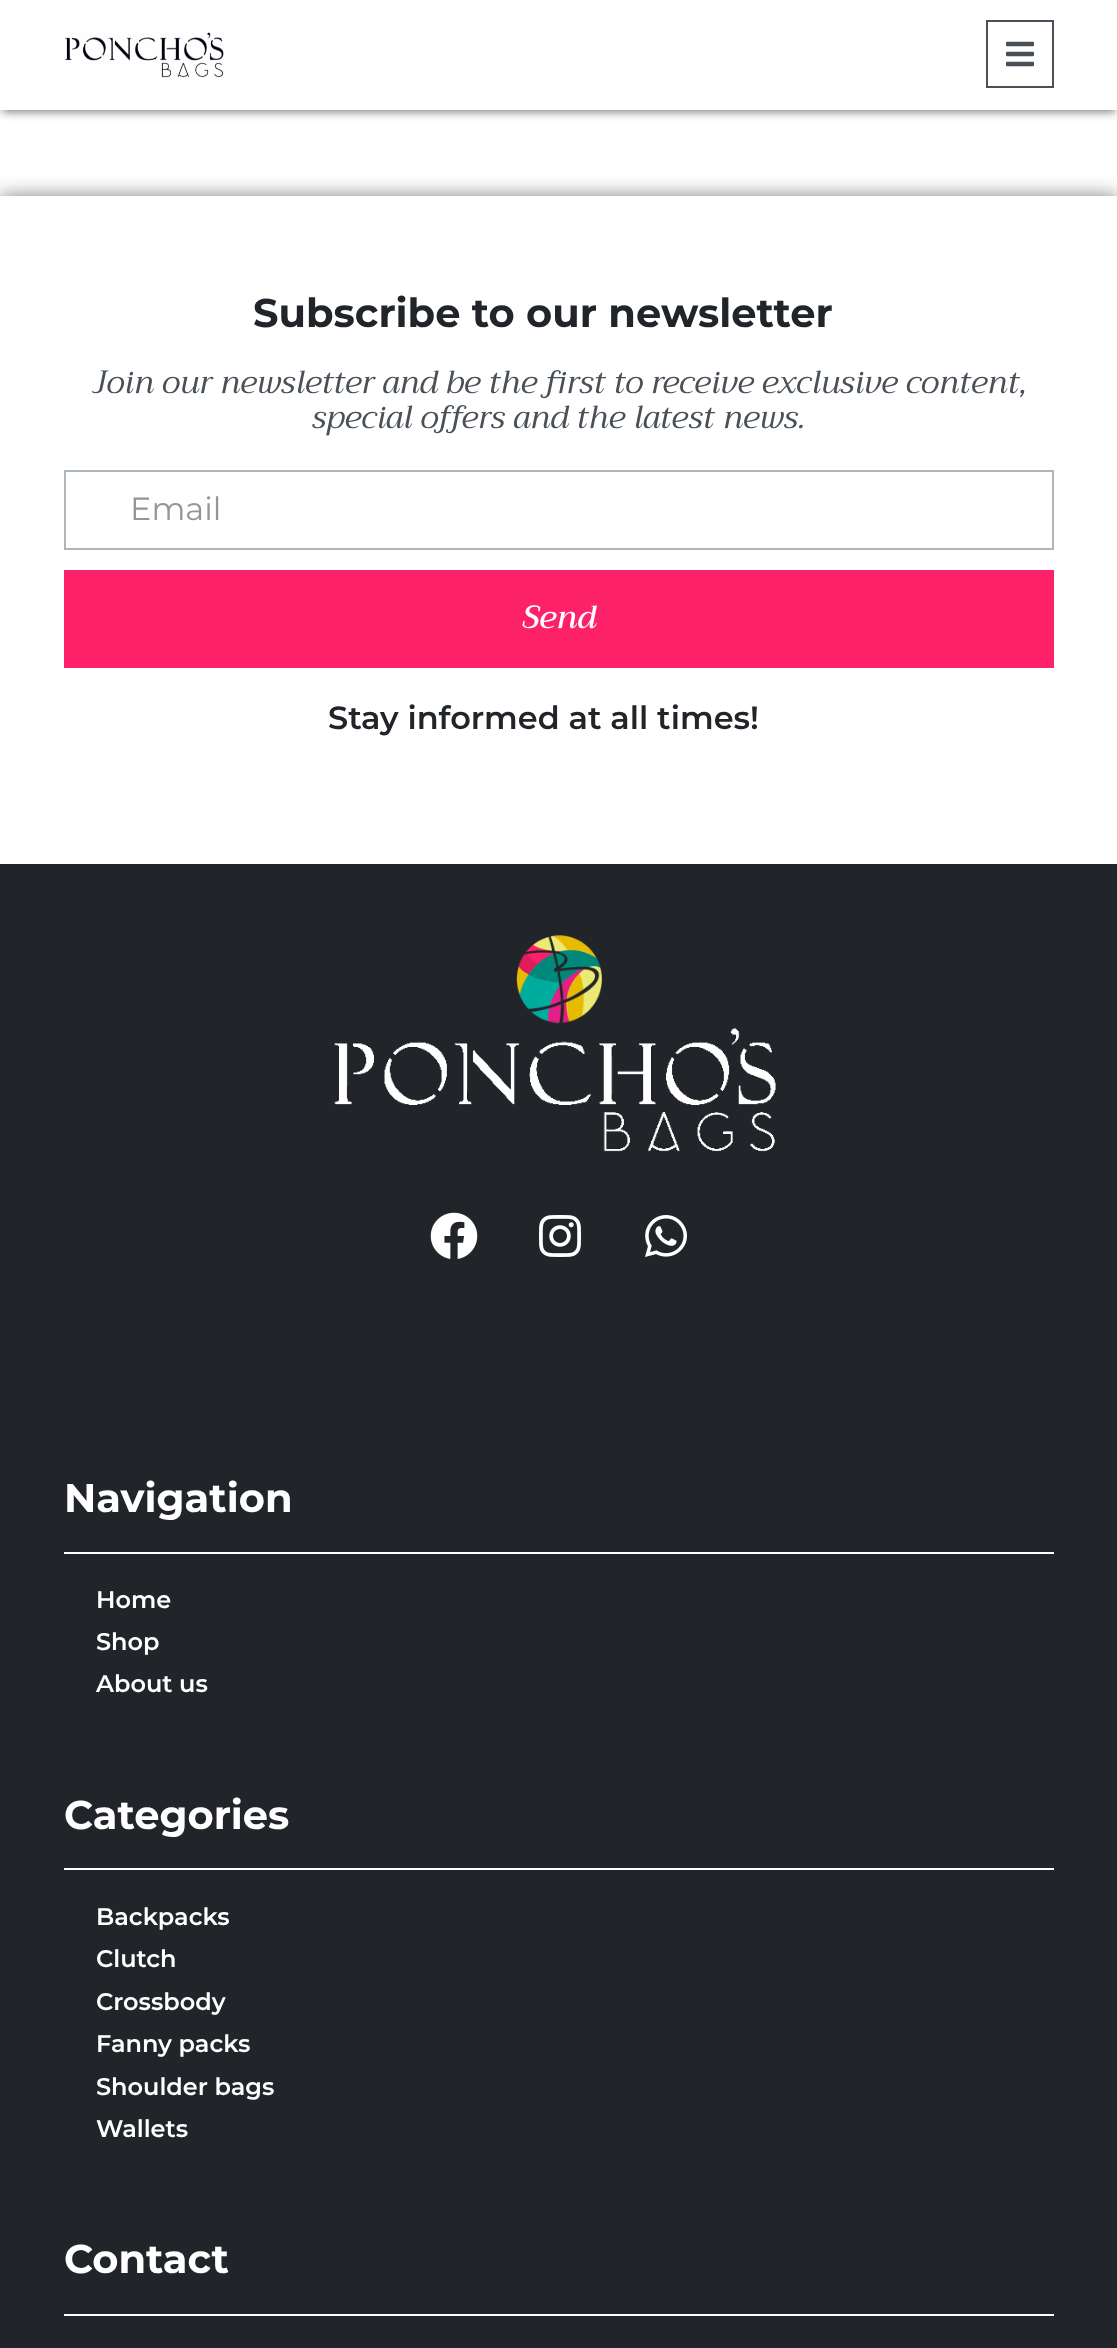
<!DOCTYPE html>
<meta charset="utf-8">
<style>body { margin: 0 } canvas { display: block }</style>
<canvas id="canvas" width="1117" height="2348"></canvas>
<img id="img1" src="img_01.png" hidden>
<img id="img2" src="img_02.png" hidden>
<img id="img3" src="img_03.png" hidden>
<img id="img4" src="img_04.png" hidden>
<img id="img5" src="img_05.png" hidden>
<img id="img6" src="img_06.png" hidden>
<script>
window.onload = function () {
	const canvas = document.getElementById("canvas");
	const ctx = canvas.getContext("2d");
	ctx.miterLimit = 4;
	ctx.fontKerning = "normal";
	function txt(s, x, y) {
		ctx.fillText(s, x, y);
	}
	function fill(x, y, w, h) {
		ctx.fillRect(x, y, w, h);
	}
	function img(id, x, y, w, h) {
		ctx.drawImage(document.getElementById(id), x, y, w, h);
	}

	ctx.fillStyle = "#FFFFFF";
	fill(0, 0, 1117, 2348);
	ctx.fillStyle = "rgba(0, 0, 0, 0.5)";
	ctx.filter = "blur(5px)";
	ctx.beginPath();
	ctx.rect(2, 6, 1114, 106);
	ctx.fill();
	ctx.filter = "none";
	ctx.fillStyle = "#FFFFFF";
	fill(0, 0, 1117, 110);
	img("img1", 65, 32, 159, 46);
	ctx.strokeStyle = "#495057";
	ctx.lineWidth = 2;
	ctx.strokeRect(987, 21, 66, 66);
	img("img2", 1006, 41, 28, 26);
	ctx.fillStyle = "rgba(0, 0, 0, 0.5)";
	ctx.filter = "blur(10px)";
	ctx.beginPath();
	ctx.rect(0, 196, 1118, 668);
	ctx.fill();
	ctx.filter = "none";
	ctx.fillStyle = "#FFFFFF";
	fill(0, 196, 1117, 668);
	ctx.strokeStyle = "#ADB5BD";
	ctx.strokeRect(65, 471, 988, 78);
	ctx.fillStyle = "#FD2169";
	fill(64, 570, 990, 98);
	ctx.fillStyle = "#212529";
	fill(0, 864, 1117, 1484);
	img("img3", 334, 935, 442, 217);
	img("img4", 430, 1212, 48, 47);
	img("img5", 539, 1215, 42, 42);
	img("img6", 645, 1215, 42, 42);
	ctx.fillStyle = "#FFFFFF";
	fill(64, 1552, 990, 2);
	fill(64, 1868, 990, 2);
	fill(64, 2314, 990, 2);
	ctx.font = "bold 40px Montserrat";
	ctx.fillStyle = "#212529";
	txt("Subscribe to our newsletter", 253, 327);
	ctx.font = "italic 32px Trirong";
	ctx.fillStyle = "#495057";
	txt("Join our newsletter and be the first to receive exclusive content,", 92, 393);
	txt("special offers and the latest news.", 312, 428);
	ctx.font = "32px Montserrat";
	ctx.fillStyle = "#92969A";
	txt("Email", 130, 520);
	ctx.font = "italic 500 32px Trirong";
	ctx.fillStyle = "#FFFFFF";
	txt("Send", 522, 628);
	ctx.font = "600 32px Montserrat";
	ctx.fillStyle = "#212529";
	txt("Stay informed at all times!", 328, 729);
	ctx.font = "bold 40px Montserrat";
	ctx.fillStyle = "#FFFFFF";
	txt("Navigation", 64, 1512);
	ctx.font = "600 24px Montserrat";
	txt("Home", 96, 1608);
	txt("Shop", 96, 1650);
	txt("About us", 96, 1692);
	ctx.font = "bold 40px Montserrat";
	txt("Categories", 64, 1829);
	ctx.font = "600 24px Montserrat";
	txt("Backpacks", 96, 1925);
	txt("Clutch", 96, 1967);
	txt("Crossbody", 96, 2010);
	txt("Fanny packs", 96, 2052);
	txt("Shoulder bags", 96, 2095);
	txt("Wallets", 96, 2137);
	ctx.font = "bold 40px Montserrat";
	txt("Contact", 64, 2273);
};
</script>
